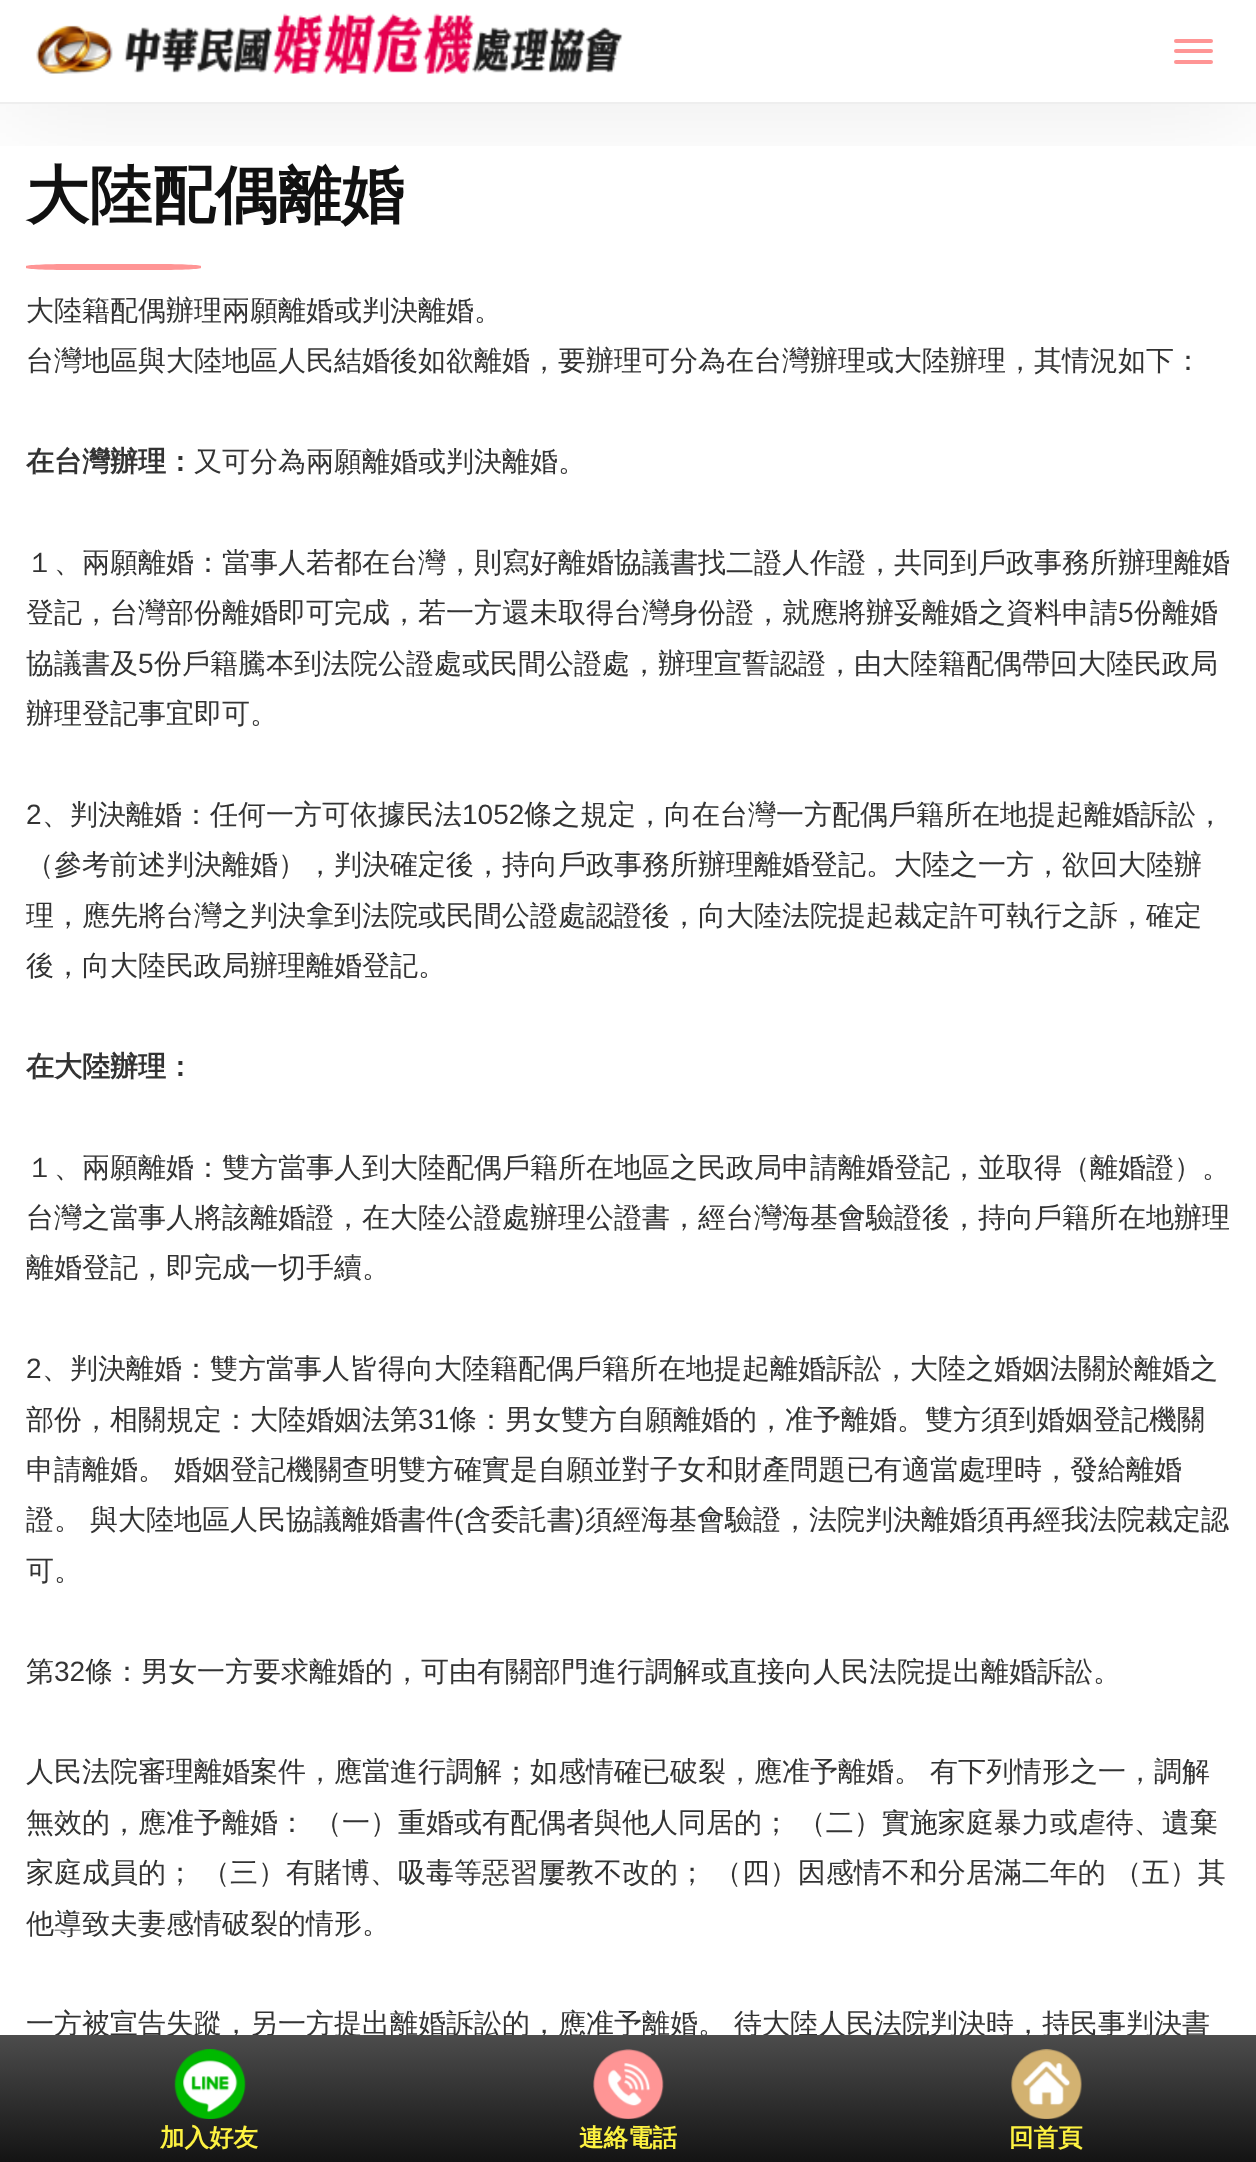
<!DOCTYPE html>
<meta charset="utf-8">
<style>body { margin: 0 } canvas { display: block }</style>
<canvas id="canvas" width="1256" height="2162"></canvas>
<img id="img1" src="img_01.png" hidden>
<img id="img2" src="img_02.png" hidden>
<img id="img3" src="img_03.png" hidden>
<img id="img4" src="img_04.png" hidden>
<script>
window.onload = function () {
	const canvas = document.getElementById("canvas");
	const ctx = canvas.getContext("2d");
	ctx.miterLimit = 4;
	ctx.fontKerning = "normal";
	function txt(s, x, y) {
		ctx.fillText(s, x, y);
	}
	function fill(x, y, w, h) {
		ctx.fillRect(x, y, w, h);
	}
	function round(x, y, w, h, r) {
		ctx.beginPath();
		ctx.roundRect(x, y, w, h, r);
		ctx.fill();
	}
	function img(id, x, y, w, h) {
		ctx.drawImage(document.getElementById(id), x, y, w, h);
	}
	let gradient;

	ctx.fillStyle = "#FFFFFF";
	fill(0, 0, 1256, 2162);
	ctx.fillStyle = "#FF9595";
	ctx.beginPath();
	ctx.moveTo(70, 264);
	ctx.lineTo(158, 264);
	ctx.bezierCurveTo(182, 264, 201, 265, 201, 266);
	ctx.lineTo(201, 268);
	ctx.bezierCurveTo(201, 269, 182, 270, 158, 270);
	ctx.lineTo(70, 270);
	ctx.bezierCurveTo(46, 270, 26, 269, 26, 268);
	ctx.lineTo(26, 266);
	ctx.bezierCurveTo(26, 265, 46, 264, 70, 264);
	ctx.closePath();
	ctx.fill();
	ctx.save();
	ctx.beginPath();
	ctx.rect(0, 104, 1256, 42);
	ctx.clip();
	ctx.fillStyle = "rgba(0, 0, 0, 0.09)";
	ctx.filter = "blur(57px)";
	ctx.beginPath();
	ctx.rect(0, 0, 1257, 103);
	ctx.fill();
	ctx.filter = "none";
	ctx.restore();
	ctx.fillStyle = "#EEEEEE";
	fill(0, 102, 1256, 2);
	img("img1", 36, 13, 587, 62);
	ctx.fillStyle = "#FF9595";
	round(1174, 39, 39, 4, 2);
	round(1174, 49, 39, 4, 2);
	round(1174, 60, 39, 4, 2);
	ctx.font = "bold 63px WenQuanYi Zen Hei";
	ctx.fillStyle = "#111111";
	txt("大陸配偶離婚", 26, 217);
	ctx.font = "500 28px WenQuanYi Zen Hei";
	ctx.fillStyle = "#333333";
	txt("大陸籍配偶辦理兩願離婚或判決離婚。", 26, 320);
	txt("台灣地區與大陸地區人民結婚後如欲離婚，要辦理可分為在台灣辦理或大陸辦理，其情況如下：", 26, 370);
	ctx.font = "bold 28px WenQuanYi Zen Hei";
	txt("在台灣辦理：", 26, 471);
	ctx.font = "500 28px WenQuanYi Zen Hei";
	txt("又可分為兩願離婚或判決離婚。", 194, 471);
	txt("１、兩願離婚：當事人若都在台灣，則寫好離婚協議書找二證人作證，共同到戶政事務所辦理離婚", 26, 572);
	txt("登記，台灣部份離婚即可完成，若一方還未取得台灣身份證，就應將辦妥離婚之資料申請", 26, 622);
	ctx.font = "28px Liberation Sans";
	txt("5", 1118, 622);
	ctx.font = "500 28px WenQuanYi Zen Hei";
	txt("份離婚", 1134, 622);
	txt("協議書及", 26, 673);
	ctx.font = "28px Liberation Sans";
	txt("5", 138, 673);
	ctx.font = "500 28px WenQuanYi Zen Hei";
	txt("份戶籍騰本到法院公證處或民間公證處，辦理宣誓認證，由大陸籍配偶帶回大陸民政局", 154, 673);
	txt("辦理登記事宜即可。", 26, 723);
	ctx.font = "28px Liberation Sans";
	txt("2", 26, 824);
	ctx.font = "500 28px WenQuanYi Zen Hei";
	txt("、判決離婚：任何一方可依據民法", 42, 824);
	ctx.font = "28px Liberation Sans";
	txt("1052", 462, 824);
	ctx.font = "500 28px WenQuanYi Zen Hei";
	txt("條之規定，向在台灣一方配偶戶籍所在地提起離婚訴訟，", 524, 824);
	txt("（參考前述判決離婚），判決確定後，持向戶政事務所辦理離婚登記。大陸之一方，欲回大陸辦", 26, 874);
	txt("理，應先將台灣之判決拿到法院或民間公證處認證後，向大陸法院提起裁定許可執行之訴，確定", 26, 925);
	txt("後，向大陸民政局辦理離婚登記。", 26, 975);
	ctx.font = "bold 28px WenQuanYi Zen Hei";
	txt("在大陸辦理：", 26, 1076);
	ctx.font = "500 28px WenQuanYi Zen Hei";
	txt("１、兩願離婚：雙方當事人到大陸配偶戶籍所在地區之民政局申請離婚登記，並取得（離婚證）。", 26, 1177);
	txt("台灣之當事人將該離婚證，在大陸公證處辦理公證書，經台灣海基會驗證後，持向戶籍所在地辦理", 26, 1227);
	txt("離婚登記，即完成一切手續。", 26, 1277);
	ctx.font = "28px Liberation Sans";
	txt("2", 26, 1378);
	ctx.font = "500 28px WenQuanYi Zen Hei";
	txt("、判決離婚：雙方當事人皆得向大陸籍配偶戶籍所在地提起離婚訴訟，大陸之婚姻法關於離婚之", 42, 1378);
	txt("部份，相關規定：大陸婚姻法第", 26, 1429);
	ctx.font = "28px Liberation Sans";
	txt("31", 418, 1429);
	ctx.font = "500 28px WenQuanYi Zen Hei";
	txt("條：男女雙方自願離婚的，准予離婚。雙方須到婚姻登記機關", 449, 1429);
	ctx.wordSpacing = "-0.5px";
	txt("申請離婚。 婚姻登記機關查明雙方確實是自願並對子女和財產問題已有適當處理時，發給離婚", 26, 1479);
	txt("證。 與大陸地區人民協議離婚書件", 26, 1529);
	ctx.wordSpacing = "0px";
	ctx.font = "28px Liberation Sans";
	txt("(", 454, 1529);
	ctx.font = "500 28px WenQuanYi Zen Hei";
	txt("含委託書", 463, 1529);
	ctx.font = "28px Liberation Sans";
	txt(")", 575, 1529);
	ctx.font = "500 28px WenQuanYi Zen Hei";
	txt("須經海基會驗證，法院判決離婚須再經我法院裁定認", 585, 1529);
	txt("可。", 26, 1580);
	txt("第", 26, 1681);
	ctx.font = "28px Liberation Sans";
	txt("32", 54, 1681);
	ctx.font = "500 28px WenQuanYi Zen Hei";
	txt("條：男女一方要求離婚的，可由有關部門進行調解或直接向人民法院提出離婚訴訟。", 85, 1681);
	ctx.wordSpacing = "-0.5px";
	txt("人民法院審理離婚案件，應當進行調解；如感情確已破裂，應准予離婚。 有下列情形之一，調解", 26, 1781);
	txt("無效的，應准予離婚： （一）重婚或有配偶者與他人同居的； （二）實施家庭暴力或虐待、遺棄", 26, 1832);
	txt("家庭成員的； （三）有賭博、吸毒等惡習屢教不改的； （四）因感情不和分居滿二年的 （五）其", 26, 1882);
	ctx.wordSpacing = "0px";
	txt("他導致夫妻感情破裂的情形。", 26, 1933);
	ctx.wordSpacing = "-0.5px";
	txt("一方被宣告失蹤，另一方提出離婚訴訟的，應准予離婚。 待大陸人民法院判決時，持民事判決書", 26, 2033);
	gradient = ctx.createLinearGradient(628, 2035, 628, 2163);
	gradient.addColorStop(0, "#4C4C4C");
	gradient.addColorStop(1, "#131313");
	ctx.fillStyle = gradient;
	fill(0, 2035, 1256, 127);
	img("img2", 174, 2049, 72, 70);
	ctx.wordSpacing = "0px";
	ctx.font = "bold 24.5px WenQuanYi Zen Hei";
	ctx.fillStyle = "#FDF241";
	txt("加入好友", 160, 2146);
	img("img3", 593, 2049, 71, 70);
	txt("連絡電話", 579, 2146);
	img("img4", 1011, 2049, 71, 70);
	txt("回首頁", 1009, 2146);
};
</script>
